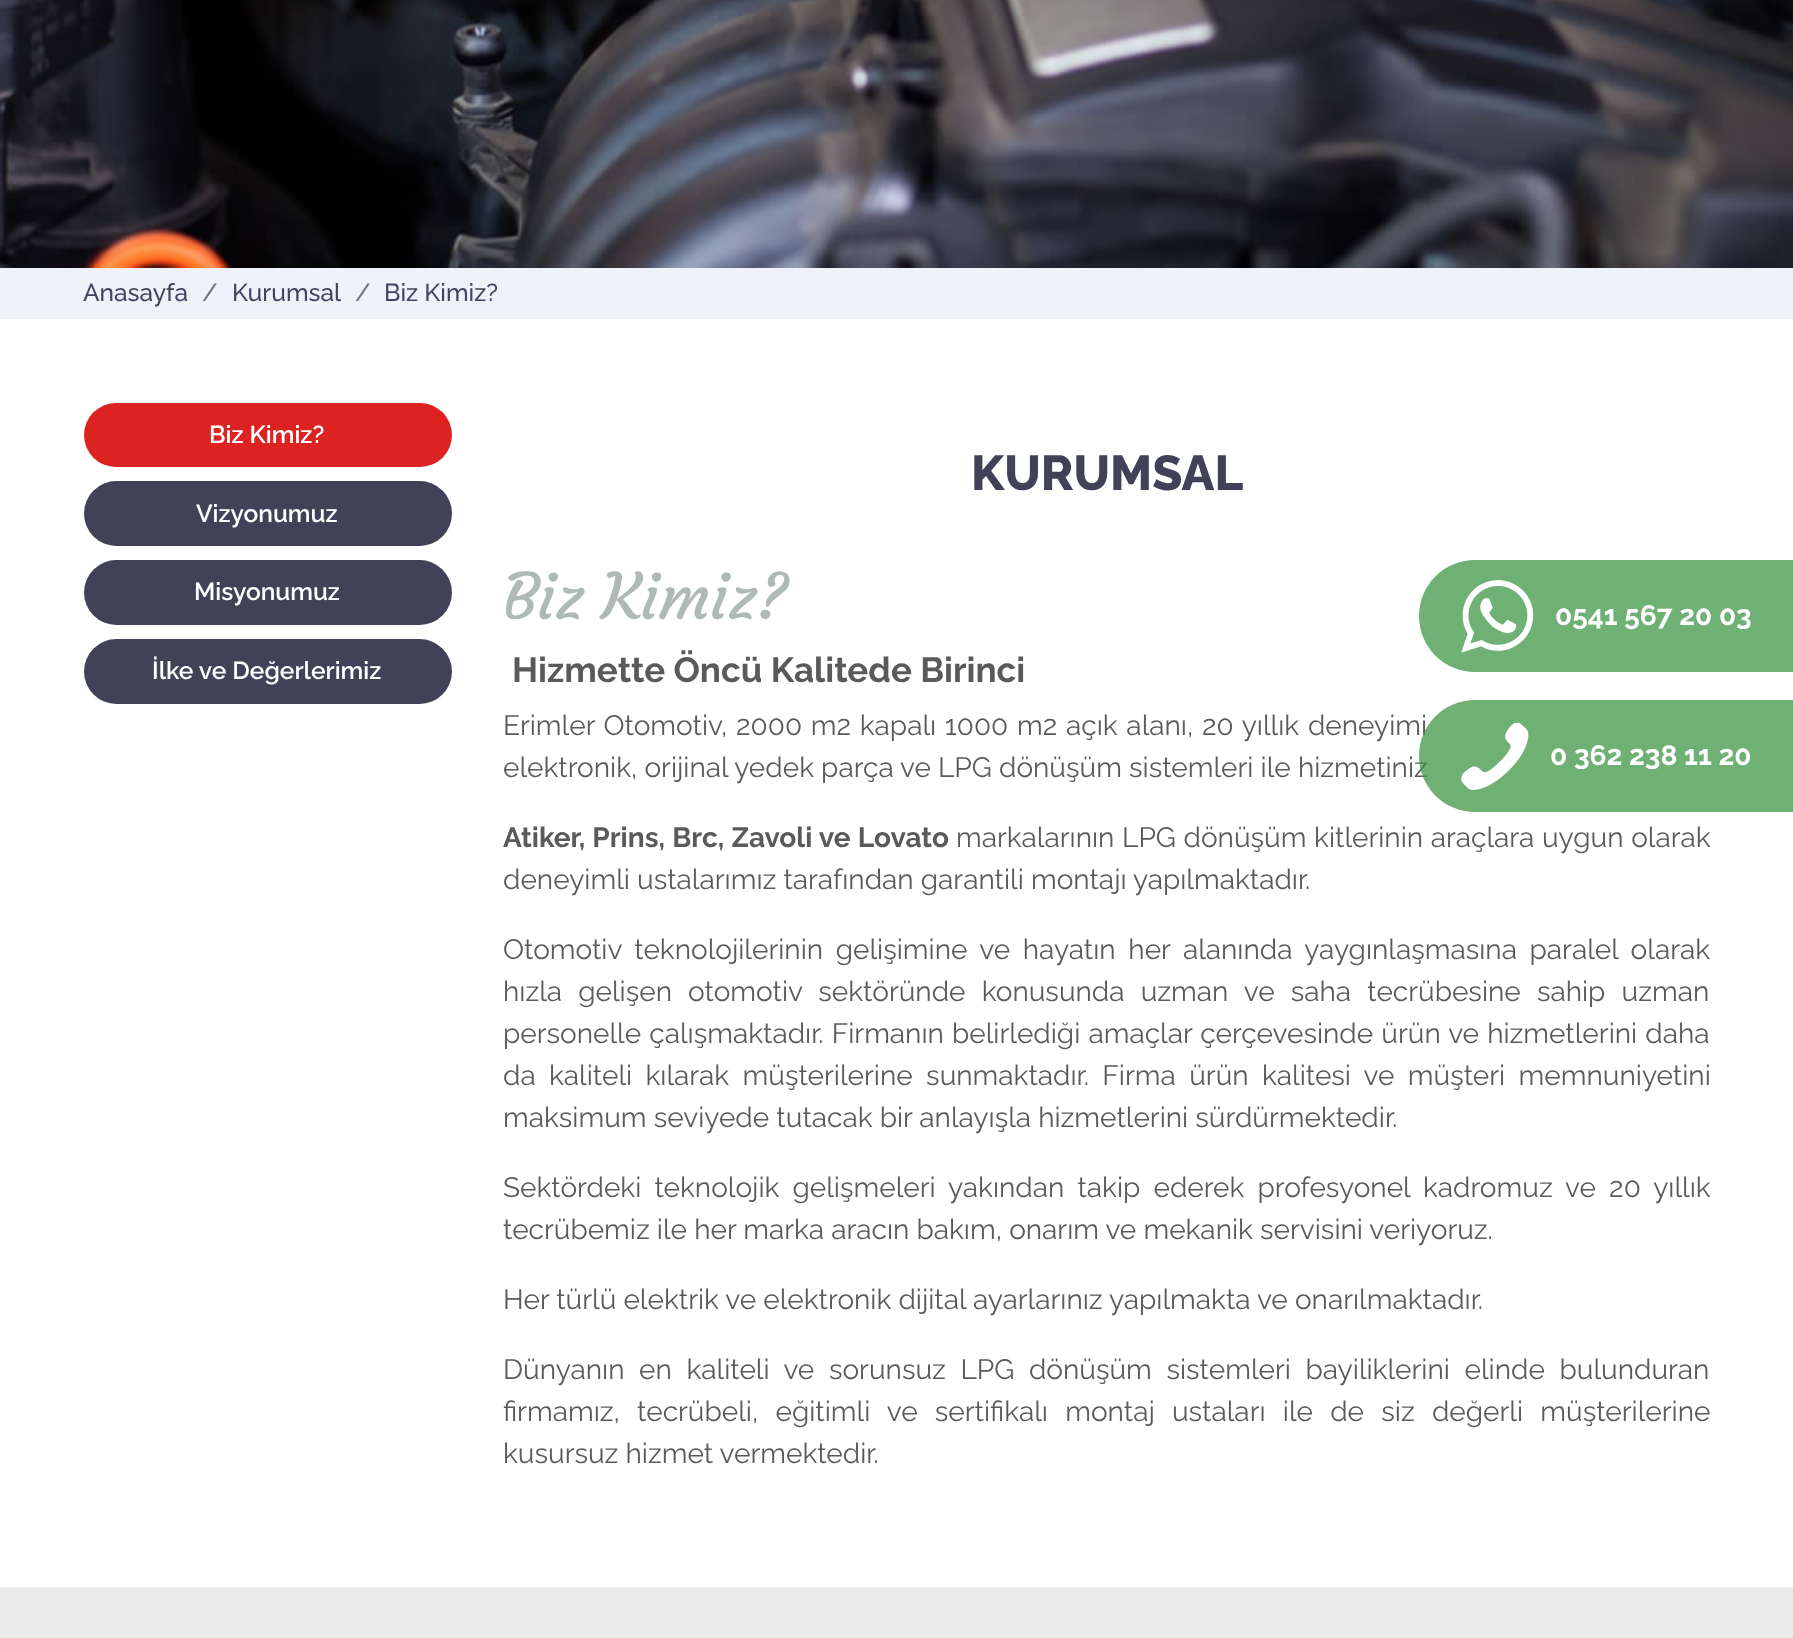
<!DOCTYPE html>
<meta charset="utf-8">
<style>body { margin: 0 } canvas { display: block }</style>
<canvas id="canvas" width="1793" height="1638"></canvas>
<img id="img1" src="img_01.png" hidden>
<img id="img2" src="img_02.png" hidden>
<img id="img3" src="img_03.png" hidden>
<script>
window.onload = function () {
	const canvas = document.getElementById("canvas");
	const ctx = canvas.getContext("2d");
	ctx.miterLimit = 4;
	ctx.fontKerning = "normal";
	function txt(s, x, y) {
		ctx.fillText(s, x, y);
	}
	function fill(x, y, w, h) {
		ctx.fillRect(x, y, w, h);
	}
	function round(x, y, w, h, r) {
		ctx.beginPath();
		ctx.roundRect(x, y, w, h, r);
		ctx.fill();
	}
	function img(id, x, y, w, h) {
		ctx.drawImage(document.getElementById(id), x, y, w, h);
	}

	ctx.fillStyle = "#FFFFFF";
	fill(0, 0, 1793, 1638);
	img("img1", 0, 0, 1793, 268);
	ctx.fillStyle = "#EFF2F8";
	fill(0, 268, 1793, 51);
	ctx.fillStyle = "#DD2222";
	round(84, 403, 368, 64, 32);
	ctx.fillStyle = "#414258";
	round(84, 481, 368, 65, 32.5);
	round(84, 560, 368, 65, 32.5);
	round(84, 639, 368, 65, 32.5);
	ctx.fillStyle = "#6FB075";
	ctx.beginPath();
	ctx.moveTo(1475, 560);
	ctx.lineTo(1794, 560);
	ctx.lineTo(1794, 672);
	ctx.lineTo(1475, 672);
	ctx.bezierCurveTo(1444, 672, 1419, 647, 1419, 616);
	ctx.bezierCurveTo(1419, 585, 1444, 560, 1475, 560);
	ctx.closePath();
	ctx.fill();
	img("img2", 1461, 580, 73, 73);
	ctx.fillStyle = "#EBEBEB";
	fill(0, 1587, 1793, 51);
	ctx.font = "500 24.5px Raleway";
	ctx.fillStyle = "#3F4661";
	txt("Anasayfa", 83, 301);
	ctx.fillStyle = "#6C757D";
	txt("/", 202, 301);
	ctx.fillStyle = "#3F4661";
	txt("Kurumsal", 232, 301);
	ctx.fillStyle = "#6C757D";
	txt("/", 355, 301);
	ctx.fillStyle = "#3F4661";
	txt("Biz Kimiz?", 384, 301);
	ctx.font = "600 24.5px Raleway";
	ctx.fillStyle = "#FFFFFF";
	txt("Biz Kimiz?", 209, 443);
	txt("Vizyonumuz", 196, 522);
	txt("Misyonumuz", 194, 600);
	txt("İlke ve Değerlerimiz", 152, 679);
	ctx.font = "800 49px Raleway";
	ctx.fillStyle = "#414258";
	txt("KURUMSAL", 971, 490);
	ctx.font = "63px Courgette";
	ctx.fillStyle = "#AFB9B8";
	txt("Biz Kimiz?", 503, 619);
	ctx.font = "bold 35px Raleway";
	ctx.fillStyle = "#5A5A5A";
	txt("Hizmette Öncü Kalitede Birinci", 512, 682);
	ctx.wordSpacing = "1.6px";
	ctx.font = "28px Raleway";
	txt("Erimler Otomotiv, 2000 m2 kapalı 1000 m2 açık alanı, 20 yıllık deneyimi", 503, 735);
	ctx.wordSpacing = "0px";
	txt("elektronik, orijinal yedek parça ve LPG dönüşüm sistemleri ile hizmetiniz", 503, 777);
	ctx.wordSpacing = "0.5px";
	ctx.font = "bold 28px Raleway";
	txt("Atiker, Prins, Brc, Zavoli ve Lovato", 503, 847);
	ctx.font = "28px Raleway";
	txt("markalarının LPG dönüşüm kitlerinin araçlara uygun olarak", 956, 847);
	ctx.wordSpacing = "0px";
	txt("deneyimli ustalarımız tarafından garantili montajı yapılmaktadır.", 503, 889);
	ctx.wordSpacing = "5.5px";
	txt("Otomotiv teknolojilerinin gelişimine ve hayatın her alanında yaygınlaşmasına paralel olarak", 503, 959);
	ctx.wordSpacing = "9px";
	txt("hızla gelişen otomotiv sektöründe konusunda uzman ve saha tecrübesine sahip uzman", 503, 1001);
	ctx.wordSpacing = "1px";
	txt("personelle çalışmaktadır. Firmanın belirlediği amaçlar çerçevesinde ürün ve hizmetlerini daha", 503, 1043);
	ctx.wordSpacing = "6.25px";
	txt("da kaliteli kılarak müşterilerine sunmaktadır. Firma ürün kalitesi ve müşteri memnuniyetini", 503, 1085);
	ctx.wordSpacing = "0px";
	txt("maksimum seviyede tutacak bir anlayışla hizmetlerini sürdürmektedir.", 503, 1127);
	ctx.wordSpacing = "6px";
	txt("Sektördeki teknolojik gelişmeleri yakından takip ederek profesyonel kadromuz ve 20 yıllık", 503, 1197);
	ctx.wordSpacing = "0px";
	txt("tecrübemiz ile her marka aracın bakım, onarım ve mekanik servisini veriyoruz.", 503, 1239);
	txt("Her türlü elektrik ve elektronik dijital ayarlarınız yapılmakta ve onarılmaktadır.", 503, 1309);
	ctx.wordSpacing = "7.5px";
	txt("Dünyanın en kaliteli ve sorunsuz LPG dönüşüm sistemleri bayiliklerini elinde bulunduran", 503, 1379);
	ctx.wordSpacing = "10.1px";
	txt("firmamız, tecrübeli, eğitimli ve sertifikalı montaj ustaları ile de siz değerli müşterilerine", 503, 1421);
	ctx.wordSpacing = "0px";
	txt("kusursuz hizmet vermektedir.", 503, 1463);
	ctx.font = "bold 28px Raleway";
	ctx.fillStyle = "#FFFFFF";
	txt("0541 567 20 03", 1555, 625);
	ctx.fillStyle = "rgba(63, 150, 71, 0.75)";
	ctx.beginPath();
	ctx.moveTo(1475, 700);
	ctx.lineTo(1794, 700);
	ctx.lineTo(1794, 812);
	ctx.lineTo(1475, 812);
	ctx.bezierCurveTo(1444, 812, 1419, 787, 1419, 756);
	ctx.bezierCurveTo(1419, 725, 1444, 700, 1475, 700);
	ctx.closePath();
	ctx.fill();
	img("img3", 1461, 722, 68, 68);
	ctx.fillStyle = "#FFFFFF";
	txt("0 362 238 11 20", 1550, 765);
};
</script>
